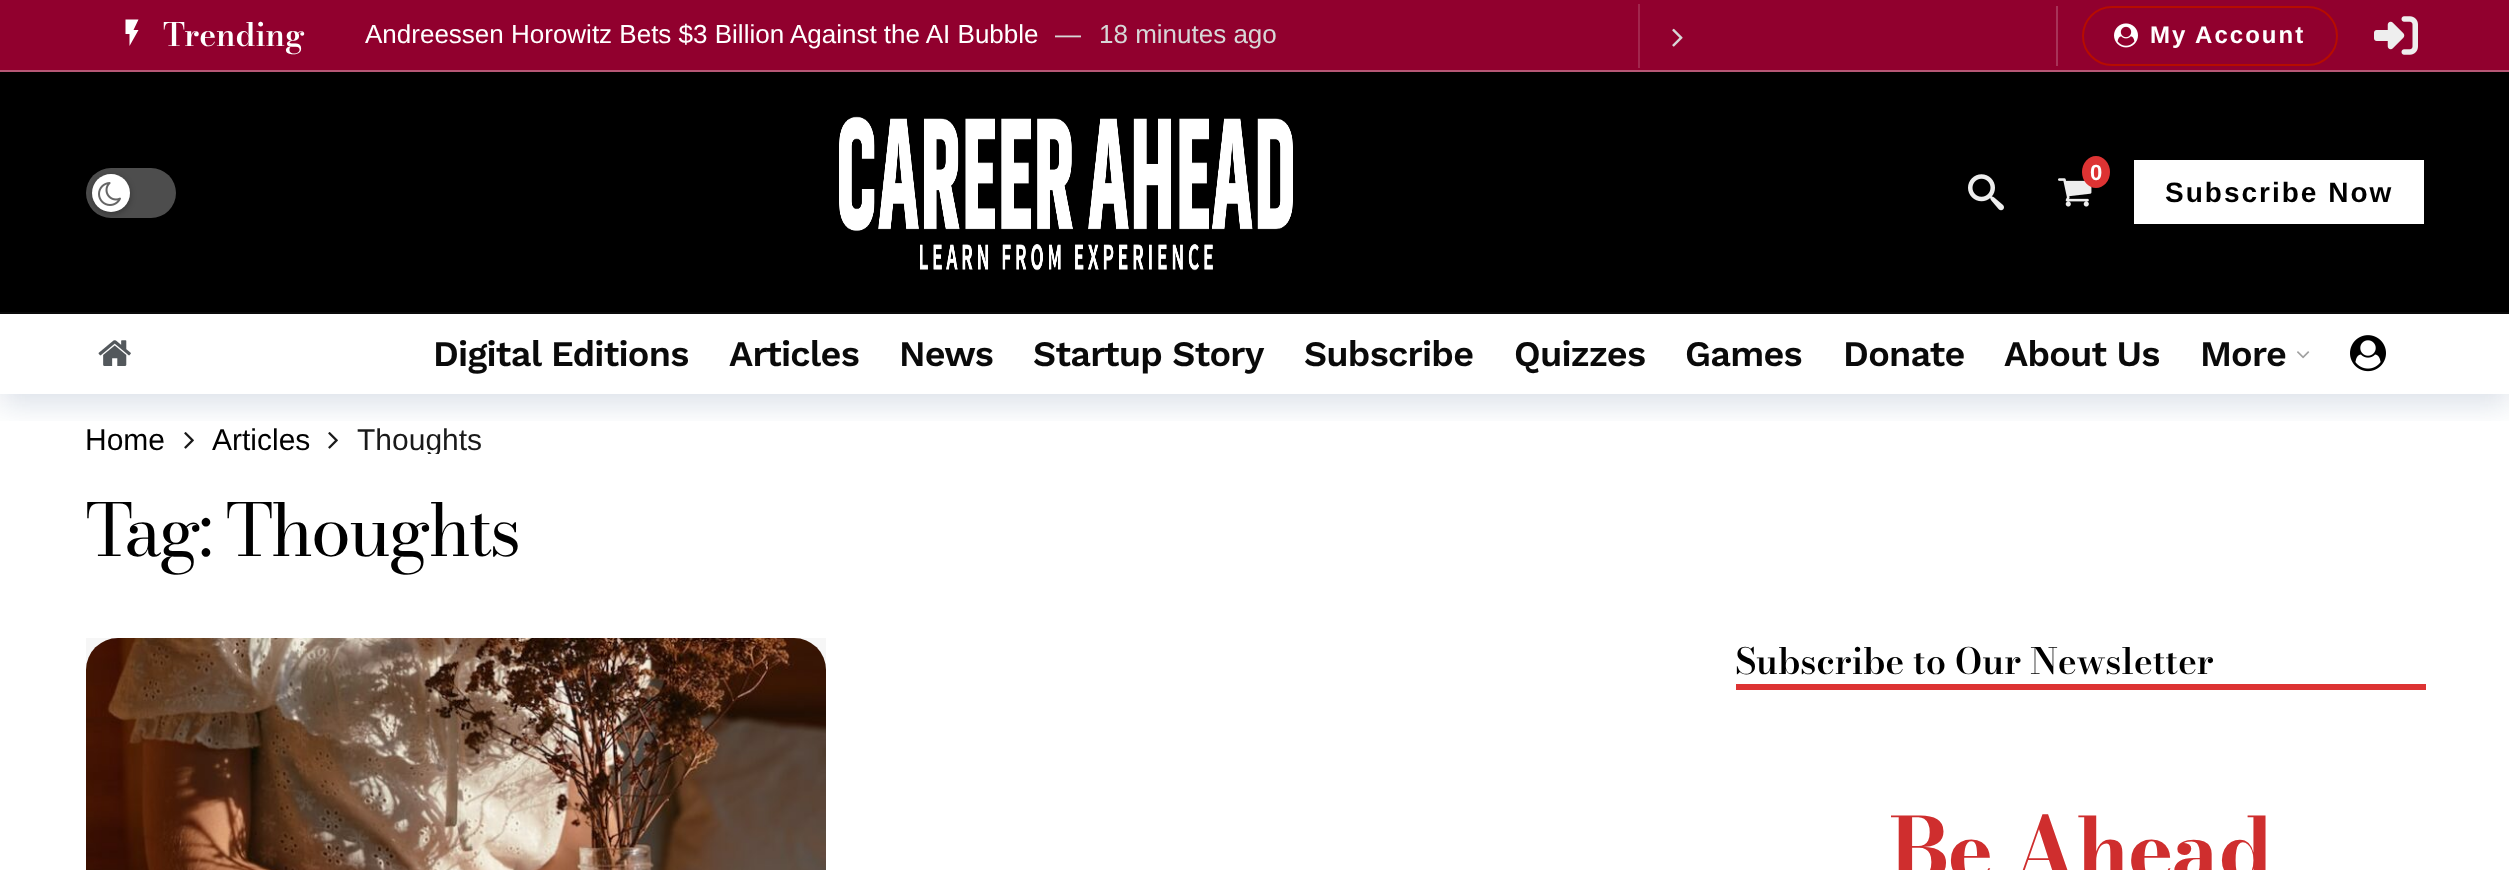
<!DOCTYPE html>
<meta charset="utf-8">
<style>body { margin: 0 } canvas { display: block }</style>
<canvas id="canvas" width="2509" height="870"></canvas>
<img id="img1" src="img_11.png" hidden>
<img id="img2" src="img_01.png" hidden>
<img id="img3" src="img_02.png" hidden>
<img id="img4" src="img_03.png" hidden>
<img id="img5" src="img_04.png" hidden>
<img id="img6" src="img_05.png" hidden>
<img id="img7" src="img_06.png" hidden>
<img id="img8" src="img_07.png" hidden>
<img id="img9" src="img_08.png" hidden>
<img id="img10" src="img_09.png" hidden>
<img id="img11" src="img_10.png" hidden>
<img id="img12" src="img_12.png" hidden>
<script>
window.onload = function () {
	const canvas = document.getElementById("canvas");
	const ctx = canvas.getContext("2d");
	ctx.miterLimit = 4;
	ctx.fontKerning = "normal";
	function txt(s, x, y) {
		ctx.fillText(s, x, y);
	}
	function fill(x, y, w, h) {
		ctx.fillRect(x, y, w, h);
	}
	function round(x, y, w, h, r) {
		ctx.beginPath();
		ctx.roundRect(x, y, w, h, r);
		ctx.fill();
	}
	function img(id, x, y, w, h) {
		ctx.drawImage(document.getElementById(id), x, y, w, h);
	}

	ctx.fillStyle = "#FFFFFF";
	fill(0, 0, 2509, 870);
	img("img1", 184, 432, 10, 17);
	img("img1", 328, 432, 10, 17);
	ctx.save();
	ctx.beginPath();
	ctx.rect(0, 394, 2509, 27);
	ctx.clip();
	ctx.fillStyle = "rgba(4, 49, 99, 0.15)";
	ctx.filter = "blur(15px)";
	ctx.beginPath();
	ctx.rect(0, 10, 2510, 394);
	ctx.fill();
	ctx.filter = "none";
	ctx.restore();
	ctx.fillStyle = "#91002E";
	fill(0, 0, 2509, 70);
	ctx.fillStyle = "#B65775";
	fill(0, 70, 2509, 2);
	ctx.fillStyle = "#FFFFFF";
	ctx.beginPath();
	ctx.moveTo(125.5, 19.5);
	ctx.lineTo(138.5, 19.5);
	ctx.lineTo(133.5, 30);
	ctx.lineTo(138.5, 30);
	ctx.lineTo(129.5, 46);
	ctx.lineTo(129.5, 34);
	ctx.lineTo(125.5, 34);
	ctx.closePath();
	ctx.fill();
	ctx.fillStyle = "#A2264D";
	fill(1638, 4, 2, 64);
	img("img2", 1672, 28, 11, 19);
	ctx.fillStyle = "#A73358";
	fill(2056, 6, 2, 60);
	ctx.beginPath();
	ctx.roundRect(2083, 7, 254, 58, 29);
	ctx.strokeStyle = "#B70C00";
	ctx.lineWidth = 2;
	ctx.stroke();
	img("img3", 2114, 23, 24, 25);
	img("img4", 2374, 16, 44, 39);
	ctx.fillStyle = "#000000";
	fill(0, 72, 2509, 240);
	ctx.fillStyle = "#0A0A0A";
	fill(0, 312, 2509, 2);
	ctx.fillStyle = "#4D4D4D";
	round(86, 168, 90, 50, 25);
	ctx.fillStyle = "rgba(0, 0, 0, 0.3)";
	ctx.filter = "blur(3px)";
	ctx.beginPath();
	ctx.roundRect(92, 176, 38, 38, 19);
	ctx.fill();
	ctx.filter = "none";
	ctx.fillStyle = "#FFFFFF";
	ctx.beginPath();
	ctx.arc(111, 193, 19, 0, Math.PI * 2);
	ctx.fill();
	img("img5", 98, 182, 23, 24);
	img("img6", 839, 116, 454, 155);
	img("img7", 1968, 174, 36, 37);
	img("img8", 2058, 178, 34, 29);
	ctx.fillStyle = "#DD3333";
	ctx.beginPath();
	ctx.ellipse(2096, 172, 14, 16, 0, 0, Math.PI * 2);
	ctx.fill();
	ctx.fillStyle = "#FFFFFF";
	fill(2134, 160, 290, 64);
	img("img9", 98, 340, 33, 26);
	img("img10", 2297, 351, 13, 8);
	img("img11", 2350, 335, 36, 37);
	ctx.fillStyle = "#F6F6F6";
	fill(86, 638, 740, 32);
	img("img12", 86, 638, 740, 232);
	ctx.fillStyle = "#DD3333";
	fill(1736, 684, 690, 6);
	ctx.letterSpacing = "-0.15px";
	ctx.font = "600 32px Bodoni Moda";
	ctx.fillStyle = "#FFFFFF";
	txt("Trending", 163, 46);
	ctx.letterSpacing = "0px";
	ctx.font = "26px Liberation Sans";
	txt("Andreessen Horowitz Bets $3 Billion Against the AI Bubble", 365, 43);
	ctx.fillStyle = "#D7D7D7";
	txt("—", 1055, 43);
	txt("18 minutes ago", 1099, 43);
	ctx.letterSpacing = "2px";
	ctx.font = "bold 24px Liberation Sans";
	ctx.fillStyle = "#FFFFFF";
	txt("My Account", 2150, 43);
	ctx.letterSpacing = "0px";
	ctx.font = "bold 22px Liberation Sans";
	txt("0", 2090, 180);
	ctx.letterSpacing = "2px";
	ctx.font = "bold 28px Liberation Sans";
	ctx.fillStyle = "#000000";
	txt("Subscribe Now", 2165, 202);
	ctx.letterSpacing = "-0.75px";
	ctx.font = "600 36px Work Sans";
	ctx.fillStyle = "#0A0A0A";
	txt("Digital Editions", 433, 366);
	txt("Articles", 729, 366);
	txt("News", 899, 366);
	txt("Startup Story", 1033, 366);
	txt("Subscribe", 1304, 366);
	txt("Quizzes", 1514, 366);
	txt("Games", 1685, 366);
	txt("Donate", 1843, 366);
	txt("About Us", 2004, 366);
	txt("More", 2200, 366);
	ctx.letterSpacing = "0px";
	ctx.font = "30px Liberation Sans";
	ctx.fillStyle = "#000000";
	txt("Home", 85, 450);
	txt("Articles", 212, 450);
	ctx.save();
	ctx.beginPath();
	ctx.rect(86, 424, 2340, 30);
	ctx.clip();
	ctx.fillStyle = "#1A1A1A";
	txt("Thoughts", 357, 450);
	ctx.restore();
	ctx.letterSpacing = "-2.9px";
	ctx.font = "72px Bodoni Moda";
	txt("Tag: Thoughts", 85, 556);
	ctx.letterSpacing = "-0.15px";
	ctx.font = "600 36px Bodoni Moda";
	txt("Subscribe to Our Newsletter", 1735, 674);
	ctx.letterSpacing = "-2.5px";
	ctx.font = "bold 86px Bodoni Moda";
	ctx.fillStyle = "#CF2E2E";
	txt("Be Ahead", 1889, 880);
};
</script>
